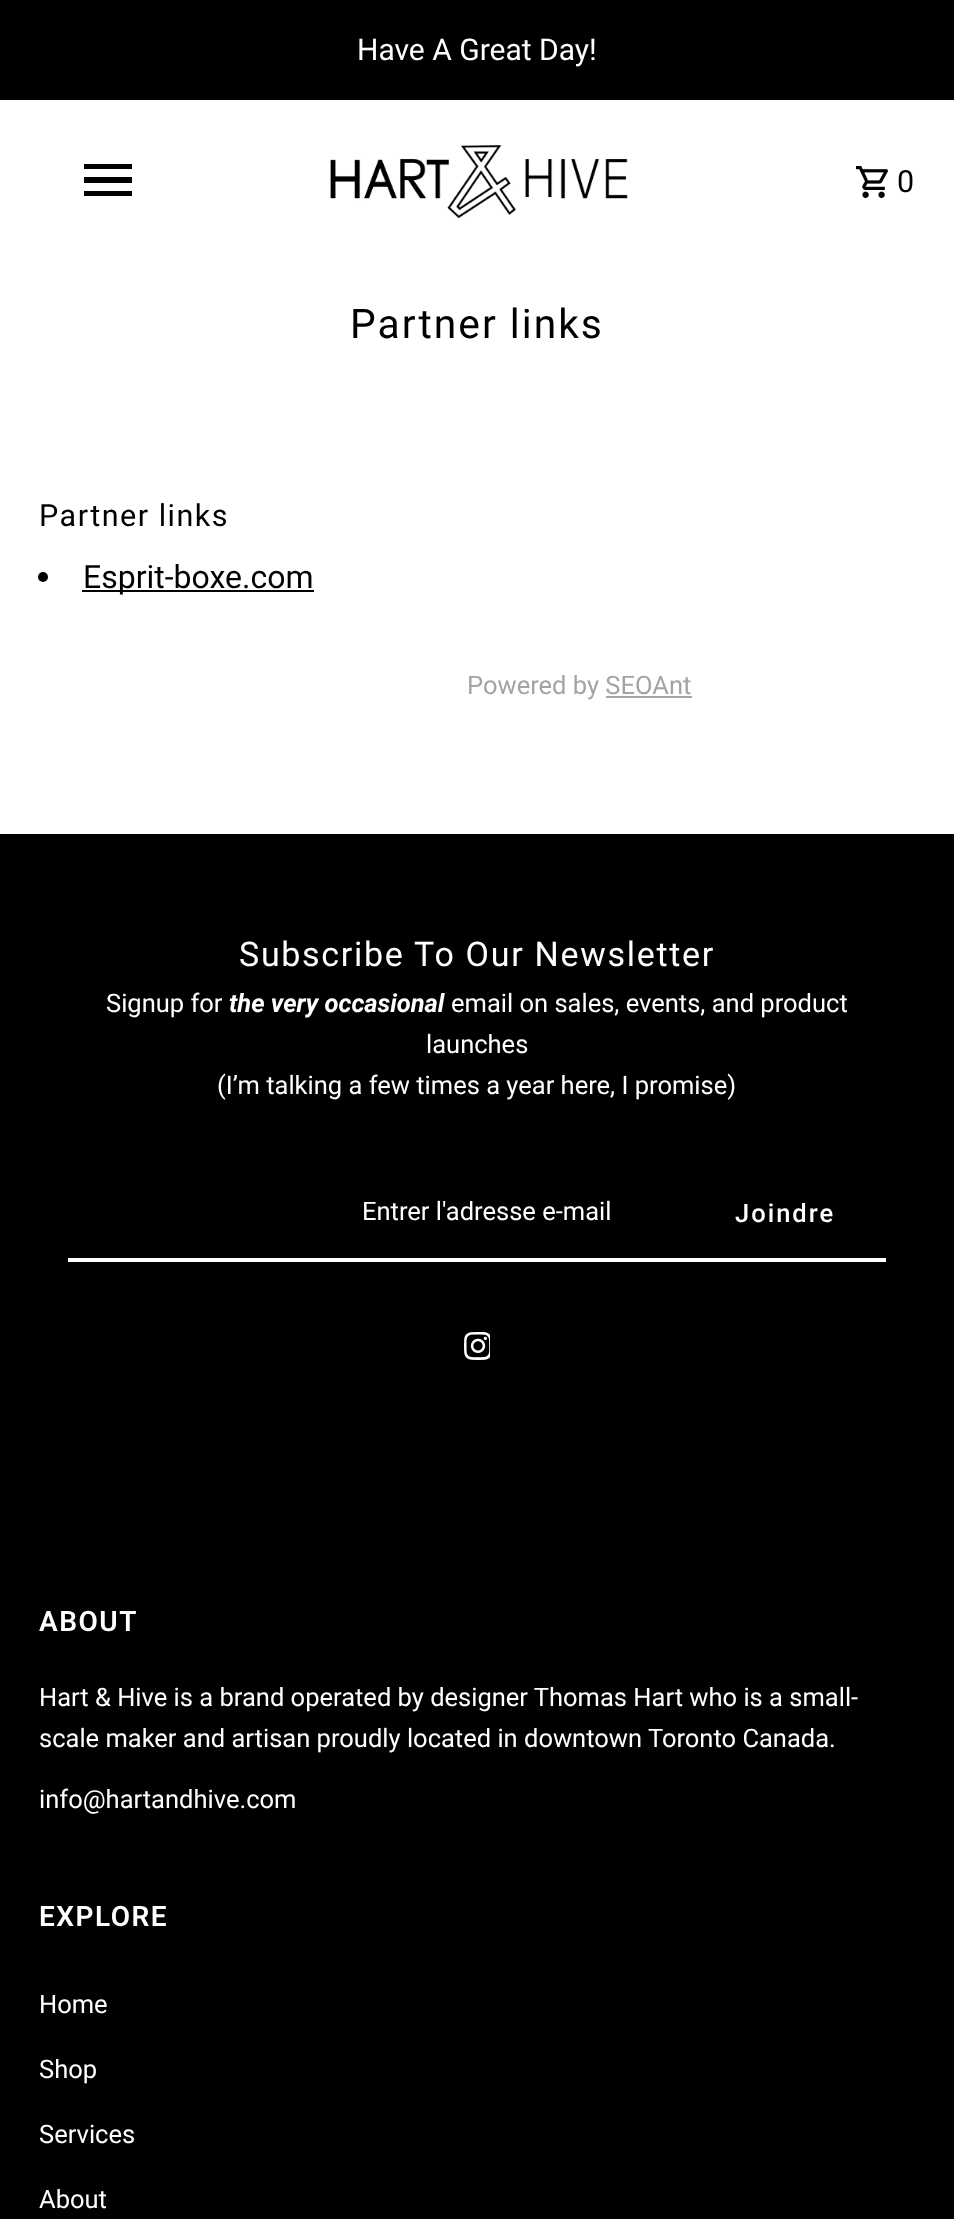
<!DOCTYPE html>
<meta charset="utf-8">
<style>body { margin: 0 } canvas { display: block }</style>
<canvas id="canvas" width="954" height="2219"></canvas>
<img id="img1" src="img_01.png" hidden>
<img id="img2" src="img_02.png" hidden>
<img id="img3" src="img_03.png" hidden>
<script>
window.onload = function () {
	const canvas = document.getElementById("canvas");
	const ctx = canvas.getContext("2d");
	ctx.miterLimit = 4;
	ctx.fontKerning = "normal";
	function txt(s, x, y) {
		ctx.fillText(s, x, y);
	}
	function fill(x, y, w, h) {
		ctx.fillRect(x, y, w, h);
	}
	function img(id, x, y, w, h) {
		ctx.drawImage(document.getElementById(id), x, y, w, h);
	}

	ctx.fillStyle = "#FFFFFF";
	fill(0, 0, 954, 2219);
	ctx.fillStyle = "#000000";
	fill(0, 0, 954, 100);
	fill(84, 191, 48, 5);
	fill(84, 177, 48, 6);
	fill(84, 164, 48, 5);
	img("img1", 330, 145, 298, 74);
	img("img2", 856, 166, 32, 32);
	ctx.beginPath();
	ctx.arc(43, 577, 5, 0, Math.PI * 2);
	ctx.fill();
	fill(82, 590, 232, 2);
	ctx.fillStyle = "#A4A4A4";
	fill(606, 696, 86, 2);
	ctx.fillStyle = "#000000";
	fill(0, 834, 954, 1385);
	ctx.fillStyle = "#FFFFFF";
	fill(68, 1258, 818, 4);
	img("img3", 464, 1332, 26, 28);
	ctx.font = "30px Roboto";
	txt("Have A Great Day!", 357, 60);
	ctx.letterSpacing = "2px";
	ctx.font = "30.5px Roboto";
	ctx.fillStyle = "#000000";
	txt("0", 897, 192);
	ctx.font = "40.75px Roboto";
	txt("Partner links", 350, 338);
	ctx.letterSpacing = "1.5px";
	ctx.font = "30.5px Roboto";
	txt("Partner links", 39, 526);
	ctx.letterSpacing = "0px";
	ctx.font = "32px Roboto";
	txt("Esprit-boxe.com", 83, 588);
	ctx.font = "25.5px Roboto";
	ctx.fillStyle = "#A4A4A4";
	txt("Powered by SEOAnt", 467, 694);
	ctx.letterSpacing = "1.7px";
	ctx.font = "34px Roboto";
	ctx.fillStyle = "#FFFFFF";
	txt("Subscribe To Our Newsletter", 239, 966);
	ctx.letterSpacing = "0px";
	ctx.font = "25.5px Roboto";
	txt("Signup for", 106, 1012);
	ctx.font = "italic bold 25.5px Roboto";
	txt("the very occasional", 229, 1012);
	ctx.font = "25.5px Roboto";
	txt("email on sales, events, and product", 451, 1012);
	txt("launches", 426, 1053);
	txt("(I’m talking a few times a year here, I promise)", 217, 1094);
	txt("Entrer l'adresse e-mail", 362, 1220);
	ctx.letterSpacing = "2px";
	ctx.font = "500 25.5px Roboto";
	txt("Joindre", 735, 1222);
	ctx.letterSpacing = "1.5px";
	ctx.font = "600 28px Roboto";
	txt("ABOUT", 39, 1631);
	ctx.letterSpacing = "0px";
	ctx.font = "25.5px Roboto";
	txt("Hart & Hive is a brand operated by designer Thomas Hart who is a small-", 39, 1706);
	txt("scale maker and artisan proudly located in downtown Toronto Canada.", 39, 1747);
	txt("info@hartandhive.com", 39, 1808);
	ctx.letterSpacing = "1.5px";
	ctx.font = "600 28px Roboto";
	txt("EXPLORE", 39, 1926);
	ctx.letterSpacing = "0px";
	ctx.font = "25.5px Roboto";
	txt("Home", 39, 2013);
	txt("Shop", 39, 2078);
	txt("Services", 39, 2143);
	txt("About", 39, 2208);
};
</script>
